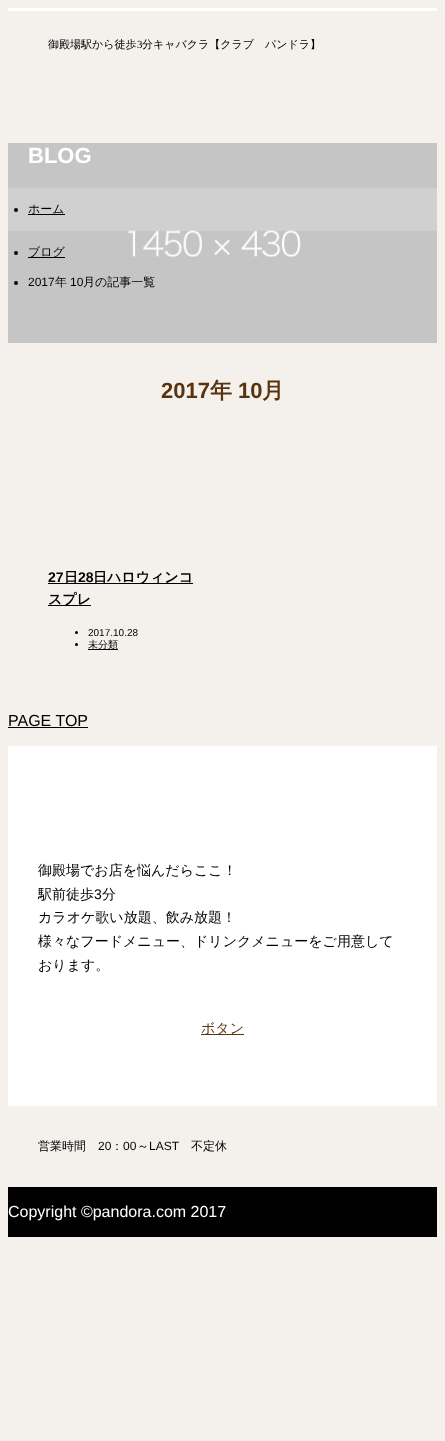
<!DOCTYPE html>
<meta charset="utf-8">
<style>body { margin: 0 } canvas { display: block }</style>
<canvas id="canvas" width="445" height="1441"></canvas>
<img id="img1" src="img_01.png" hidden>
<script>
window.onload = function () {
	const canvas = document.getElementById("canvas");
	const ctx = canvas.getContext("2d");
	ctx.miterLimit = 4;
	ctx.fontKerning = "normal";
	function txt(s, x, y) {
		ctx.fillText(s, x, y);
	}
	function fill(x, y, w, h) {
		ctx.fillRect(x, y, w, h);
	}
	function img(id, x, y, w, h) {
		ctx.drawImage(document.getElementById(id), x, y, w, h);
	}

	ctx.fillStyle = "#F4F0EC";
	fill(0, 0, 445, 1441);
	ctx.fillStyle = "#FFFFFF";
	fill(8, 8, 429, 3);
	img("img1", 8, 143, 429, 200);
	ctx.fillStyle = "rgba(255, 255, 255, 0.2)";
	fill(8, 188, 429, 43);
	ctx.fillStyle = "#000000";
	ctx.beginPath();
	ctx.arc(16, 210, 2, 0, Math.PI * 2);
	ctx.fill();
	fill(28, 214, 37, 1);
	ctx.beginPath();
	ctx.arc(16, 253, 2, 0, Math.PI * 2);
	ctx.fill();
	fill(28, 257, 37, 1);
	ctx.beginPath();
	ctx.arc(16, 283, 2, 0, Math.PI * 2);
	ctx.fill();
	fill(48, 583, 145, 1);
	fill(48, 605, 43, 1);
	ctx.beginPath();
	ctx.arc(76.5, 632.5, 1.5, 0, Math.PI * 2);
	ctx.fill();
	ctx.beginPath();
	ctx.arc(76.5, 644.5, 1.5, 0, Math.PI * 2);
	ctx.fill();
	fill(88, 649, 30, 1);
	fill(8, 727, 80, 1);
	ctx.fillStyle = "#FFFFFF";
	fill(8, 746, 429, 360);
	ctx.fillStyle = "#58330C";
	fill(201, 1034, 43, 1);
	ctx.fillStyle = "#000000";
	fill(8, 1187, 429, 50);
	ctx.font = "500 11px WenQuanYi Zen Hei";
	txt("御殿場駅から徒歩", 48, 48);
	ctx.font = "11px Liberation Serif";
	txt("3", 137, 48);
	ctx.font = "500 11px WenQuanYi Zen Hei";
	txt("分キャバクラ【クラブ　パンドラ】", 142, 48);
	ctx.font = "bold 22px Liberation Sans";
	ctx.fillStyle = "#FFFFFF";
	txt("BLOG", 28, 163);
	ctx.font = "500 12px WenQuanYi Zen Hei";
	ctx.fillStyle = "#000000";
	txt("ホーム", 28, 213);
	txt("ブログ", 28, 256);
	ctx.font = "12px Liberation Sans";
	txt("2017", 28, 286);
	ctx.font = "500 12px WenQuanYi Zen Hei";
	txt("年", 55, 286);
	ctx.font = "12px Liberation Sans";
	txt("10", 70, 286);
	ctx.font = "500 12px WenQuanYi Zen Hei";
	txt("月の記事一覧", 83, 286);
	ctx.font = "bold 22px Liberation Sans";
	ctx.fillStyle = "#58330D";
	txt("2017", 161, 398);
	ctx.font = "bold 22px WenQuanYi Zen Hei";
	txt("年", 210, 398);
	ctx.font = "bold 22px Liberation Sans";
	txt("10", 238, 398);
	ctx.font = "bold 22px WenQuanYi Zen Hei";
	txt("月", 262, 398);
	ctx.font = "bold 14px Liberation Sans";
	ctx.fillStyle = "#000000";
	txt("27", 48, 582);
	ctx.font = "bold 14px WenQuanYi Zen Hei";
	txt("日", 64, 582);
	ctx.font = "bold 14px Liberation Sans";
	txt("28", 78, 582);
	ctx.font = "bold 14px WenQuanYi Zen Hei";
	txt("日ハロウィンコ", 93, 582);
	txt("スプレ", 48, 604);
	ctx.font = "10px Liberation Sans";
	txt("2017.10.28", 88, 636);
	ctx.font = "500 10px WenQuanYi Zen Hei";
	txt("未分類", 88, 648);
	ctx.font = "16px Liberation Sans";
	txt("PAGE TOP", 8, 726);
	ctx.font = "500 14px WenQuanYi Zen Hei";
	txt("御殿場でお店を悩んだらここ！", 38, 875);
	txt("駅前徒歩", 38, 899);
	ctx.font = "14px Liberation Sans";
	txt("3", 94, 899);
	ctx.font = "500 14px WenQuanYi Zen Hei";
	txt("分", 102, 899);
	txt("カラオケ歌い放題、飲み放題！", 38, 922);
	txt("様々なフードメニュー、ドリンクメニューをご用意して", 38, 946);
	txt("おります。", 38, 970);
	ctx.fillStyle = "#58330D";
	txt("ボタン", 201, 1033);
	ctx.font = "500 12px WenQuanYi Zen Hei";
	ctx.fillStyle = "#000000";
	txt("営業時間", 38, 1150);
	ctx.font = "12px Liberation Sans";
	txt("20", 98, 1150);
	ctx.font = "500 12px WenQuanYi Zen Hei";
	txt("：", 111, 1150);
	ctx.font = "12px Liberation Sans";
	txt("00", 123, 1150);
	ctx.font = "500 12px WenQuanYi Zen Hei";
	txt("～", 137, 1150);
	ctx.font = "12px Liberation Sans";
	txt("LAST", 149, 1150);
	ctx.font = "500 12px WenQuanYi Zen Hei";
	txt("不定休", 191, 1150);
	ctx.font = "16px Liberation Sans";
	ctx.fillStyle = "#FFFFFF";
	txt("Copyright ©pandora.com 2017", 8, 1217);
};
</script>
